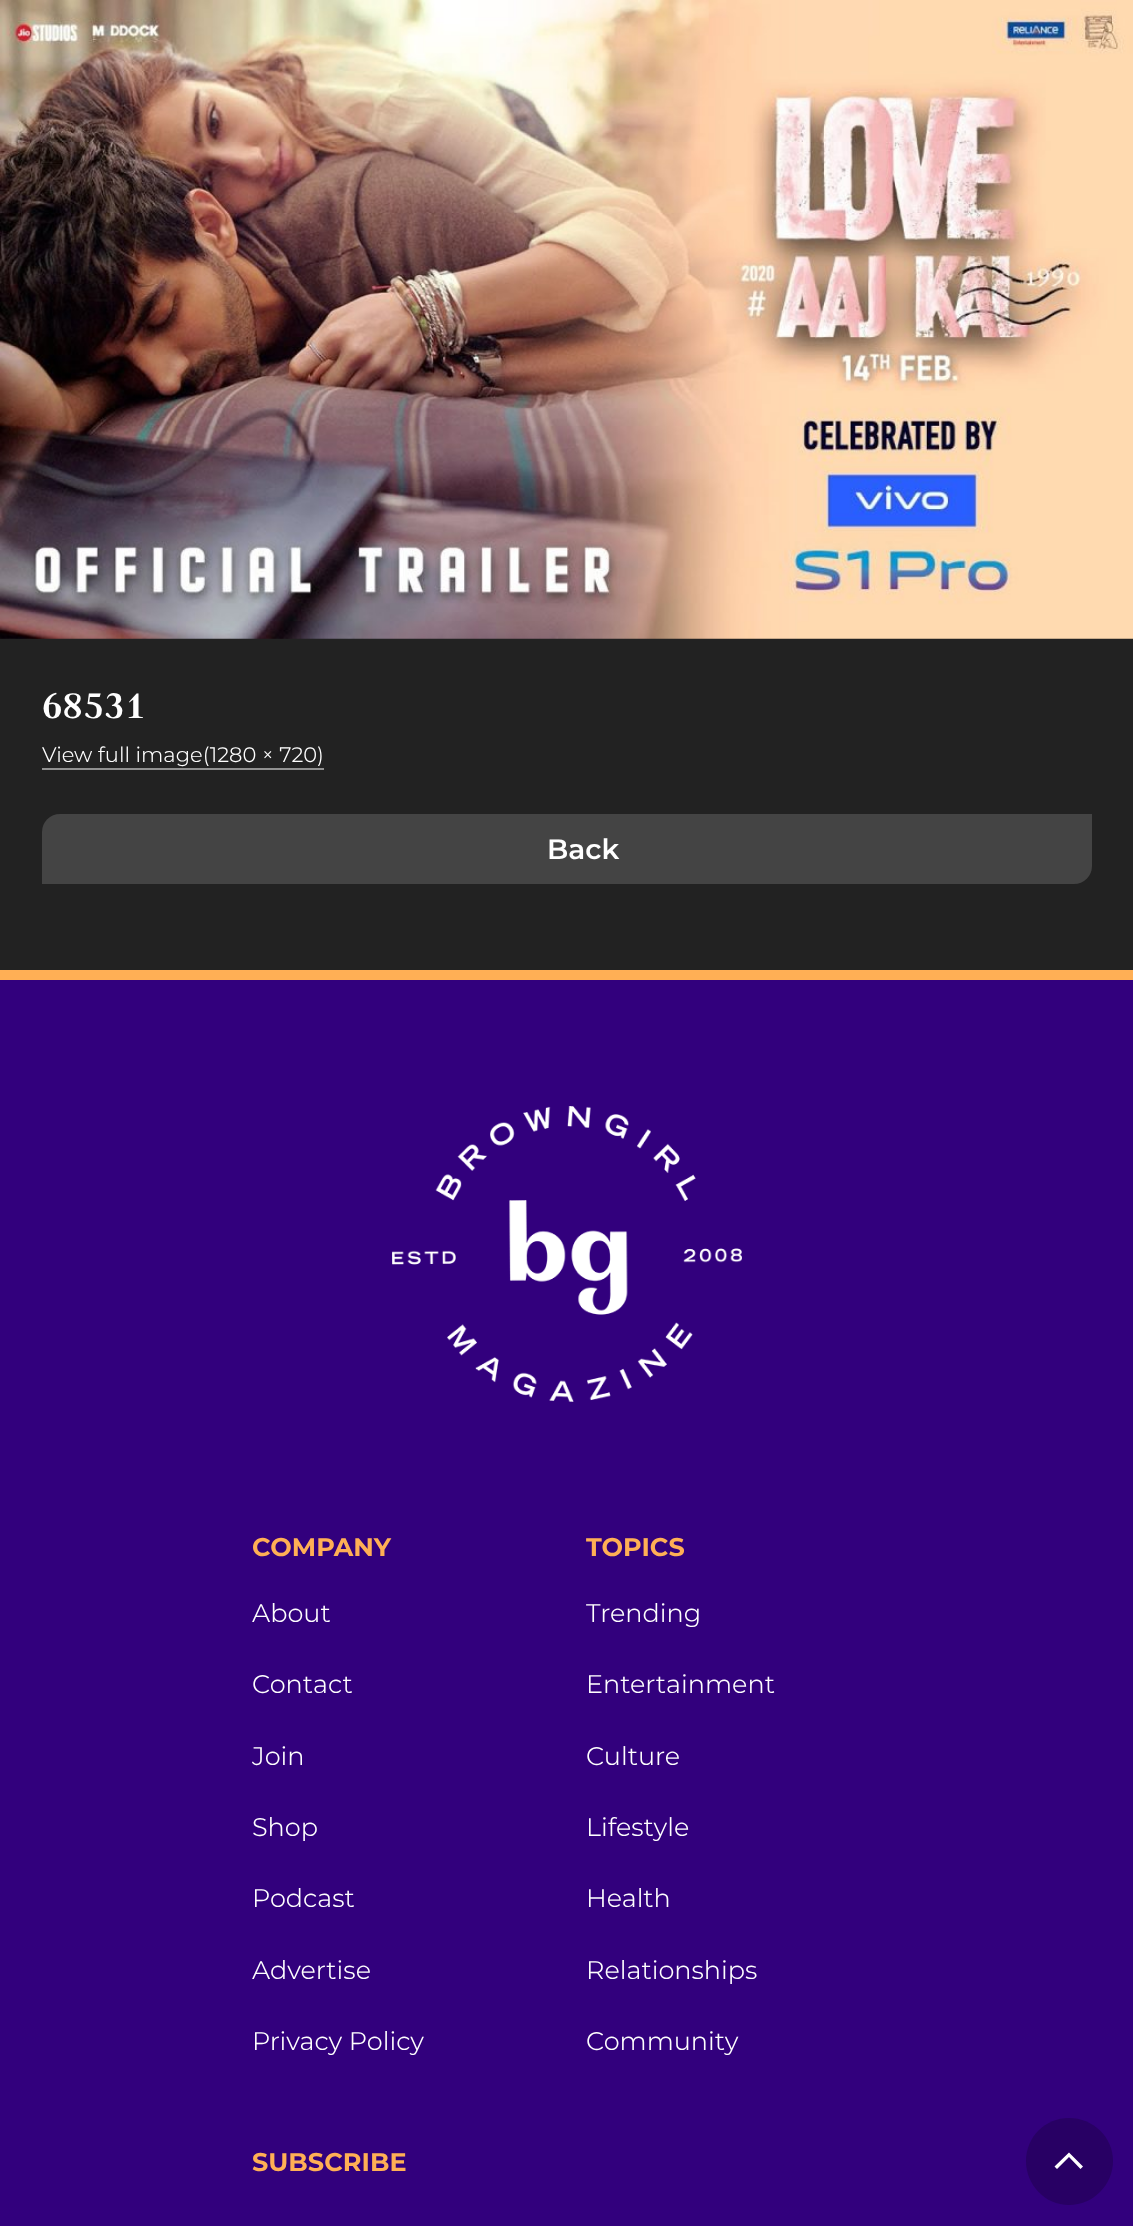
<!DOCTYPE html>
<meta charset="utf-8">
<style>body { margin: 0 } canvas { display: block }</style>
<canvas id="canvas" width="1133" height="2226"></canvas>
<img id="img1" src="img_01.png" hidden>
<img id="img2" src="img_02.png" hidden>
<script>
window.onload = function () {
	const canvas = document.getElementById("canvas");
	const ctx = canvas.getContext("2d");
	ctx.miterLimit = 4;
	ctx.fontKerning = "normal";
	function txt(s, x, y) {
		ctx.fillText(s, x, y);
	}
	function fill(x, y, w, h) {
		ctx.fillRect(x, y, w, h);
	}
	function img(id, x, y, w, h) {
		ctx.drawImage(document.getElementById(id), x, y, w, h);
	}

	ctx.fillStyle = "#222222";
	fill(0, 0, 1133, 2226);
	img("img1", 0, 0, 1133, 639);
	ctx.fillStyle = "#919191";
	fill(42, 768, 282, 2);
	ctx.fillStyle = "#444444";
	ctx.beginPath();
	ctx.roundRect(42, 814, 1050, 70, [18, 0, 18, 0]);
	ctx.fill();
	ctx.fillStyle = "#32007D";
	fill(0, 980, 1133, 1246);
	ctx.fillStyle = "#FFAF55";
	fill(0, 970, 1133, 10);
	img("img2", 392, 1106, 350, 296);
	ctx.fillStyle = "#280064";
	ctx.beginPath();
	ctx.moveTo(1113, 2161);
	ctx.bezierCurveTo(1113, 2185, 1093, 2205, 1069, 2205);
	ctx.bezierCurveTo(1045, 2205, 1026, 2185, 1026, 2161);
	ctx.bezierCurveTo(1026, 2137, 1045, 2118, 1069, 2118);
	ctx.bezierCurveTo(1093, 2118, 1113, 2137, 1113, 2161);
	ctx.closePath();
	ctx.fill();
	ctx.fillStyle = "#FFFFFF";
	ctx.beginPath();
	ctx.moveTo(1083, 2166.5);
	ctx.lineTo(1080.5, 2169);
	ctx.lineTo(1069, 2157);
	ctx.lineTo(1057, 2169);
	ctx.lineTo(1054.5, 2166.5);
	ctx.lineTo(1069, 2152.5);
	ctx.closePath();
	ctx.fill();
	ctx.font = "bold 42px Judson";
	txt("68531", 42, 718);
	ctx.font = "300 21px Montserrat";
	txt("View full image(1280 × 720)", 42, 762);
	ctx.font = "600 28px Montserrat";
	txt("Back", 547, 859);
	ctx.font = "bold 25.5px Montserrat";
	ctx.fillStyle = "#FFAF55";
	txt("COMPANY", 252, 1556);
	ctx.font = "300 25.5px Montserrat";
	ctx.fillStyle = "#FFFFFF";
	txt("About", 252, 1622);
	txt("Contact", 252, 1693);
	txt("Join", 252, 1765);
	txt("Shop", 252, 1836);
	txt("Podcast", 252, 1907);
	txt("Advertise", 252, 1979);
	txt("Privacy Policy", 252, 2050);
	ctx.font = "bold 25.5px Montserrat";
	ctx.fillStyle = "#FFAF55";
	txt("TOPICS", 586, 1556);
	ctx.font = "300 25.5px Montserrat";
	ctx.fillStyle = "#FFFFFF";
	txt("Trending", 586, 1622);
	txt("Entertainment", 586, 1693);
	txt("Culture", 586, 1765);
	txt("Lifestyle", 586, 1836);
	txt("Health", 586, 1907);
	txt("Relationships", 586, 1979);
	txt("Community", 586, 2050);
	ctx.font = "bold 25.5px Montserrat";
	ctx.fillStyle = "#FFAF55";
	txt("SUBSCRIBE", 252, 2171);
};
</script>
